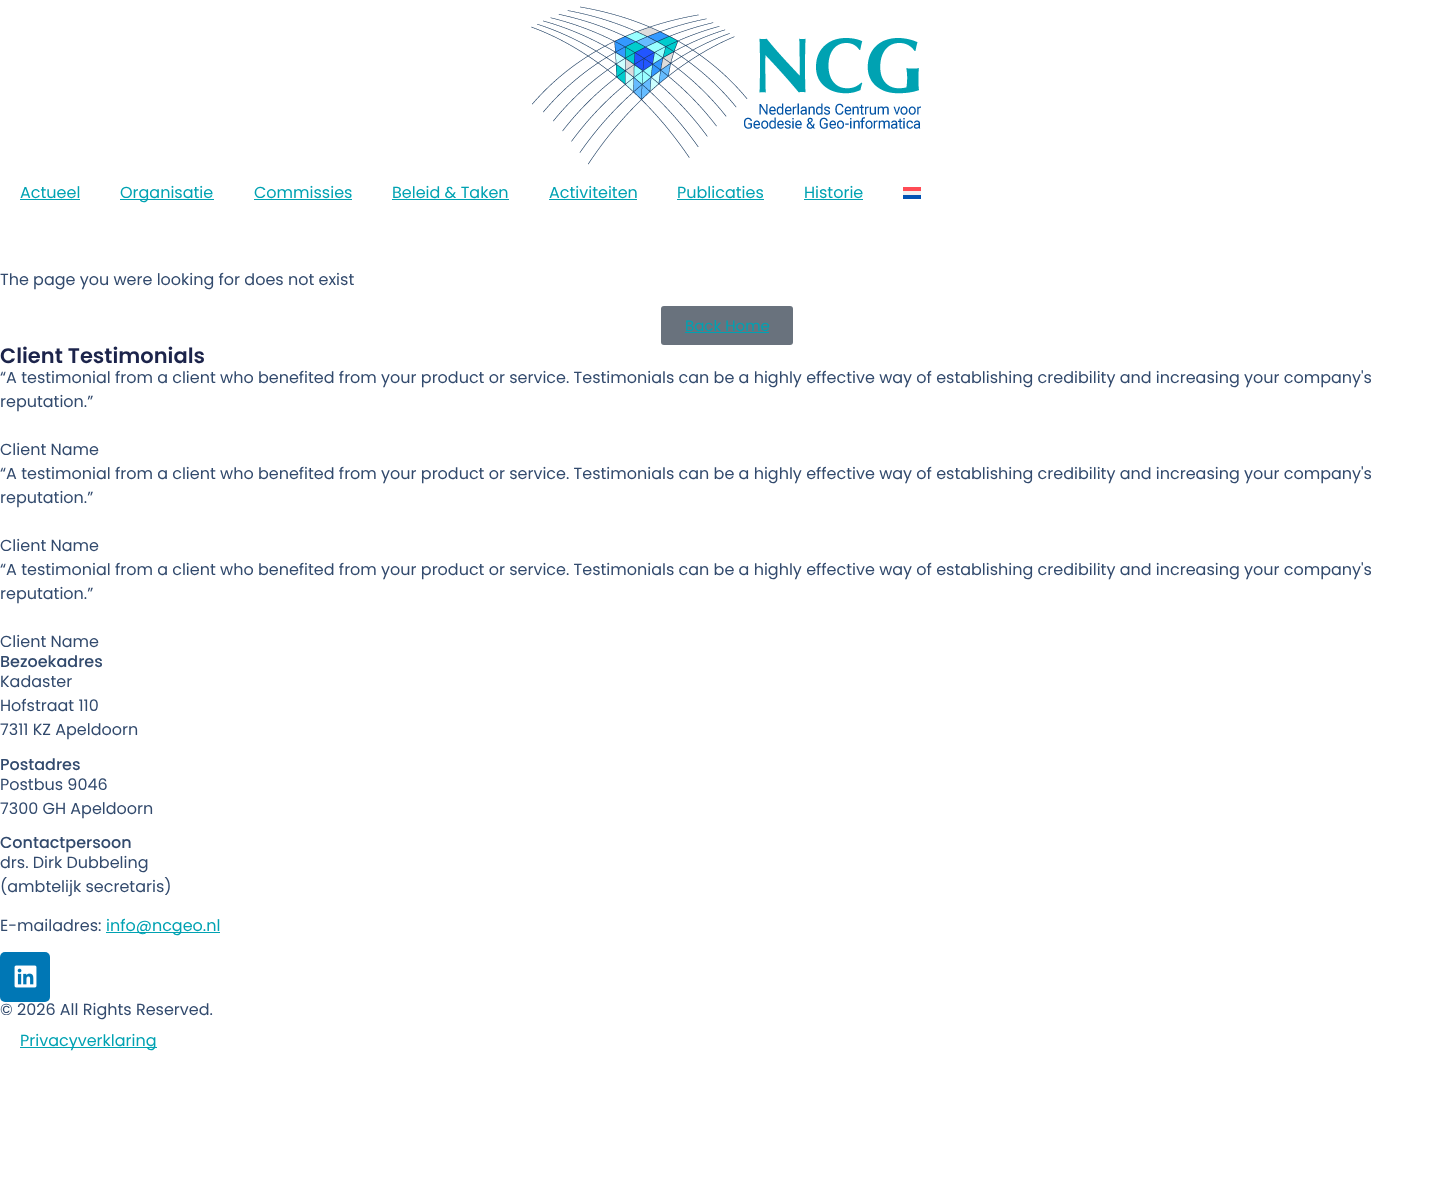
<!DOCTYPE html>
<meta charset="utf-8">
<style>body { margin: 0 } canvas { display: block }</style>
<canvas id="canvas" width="1454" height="1185"></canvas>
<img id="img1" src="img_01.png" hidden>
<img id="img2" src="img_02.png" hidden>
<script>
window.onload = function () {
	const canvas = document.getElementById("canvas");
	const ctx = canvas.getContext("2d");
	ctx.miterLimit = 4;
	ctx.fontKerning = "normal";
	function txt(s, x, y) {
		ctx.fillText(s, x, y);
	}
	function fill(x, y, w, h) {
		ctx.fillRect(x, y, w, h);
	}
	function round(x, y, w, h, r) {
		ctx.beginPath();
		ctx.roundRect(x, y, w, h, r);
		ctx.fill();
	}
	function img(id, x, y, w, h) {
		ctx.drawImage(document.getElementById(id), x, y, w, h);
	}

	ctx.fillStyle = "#FFFFFF";
	fill(0, 0, 1454, 1185);
	img("img1", 531, 6, 390, 159);
	ctx.fillStyle = "#00A2B2";
	fill(20, 199, 60, 1);
	fill(120, 199, 94, 1);
	fill(254, 199, 98, 1);
	fill(392, 199, 117, 1);
	fill(549, 199, 88, 1);
	fill(677, 199, 87, 1);
	fill(804, 199, 59, 1);
	ctx.fillStyle = "#F0F0F0";
	fill(903, 191, 18, 4);
	ctx.fillStyle = "#0052B4";
	fill(903, 195, 18, 4);
	ctx.fillStyle = "#FF4B55";
	fill(903, 187, 18, 4);
	ctx.fillStyle = "#69727D";
	round(661, 306, 132, 39, 3);
	ctx.fillStyle = "#00A2B2";
	fill(685, 332, 84, 1);
	fill(106, 932, 114, 1);
	ctx.fillStyle = "#0077B5";
	round(0, 952, 50, 50, 5);
	img("img2", 14, 965, 23, 23);
	ctx.fillStyle = "#00A2B2";
	fill(20, 1047, 137, 1);
	ctx.font = "16px Poppins";
	txt("Actueel", 20, 198);
	txt("Organisatie", 120, 198);
	txt("Commissies", 254, 198);
	txt("Beleid & Taken", 392, 198);
	txt("Activiteiten", 549, 198);
	txt("Publicaties", 677, 198);
	txt("Historie", 804, 198);
	ctx.fillStyle = "#324A6D";
	txt("The page you were looking for does not exist", 0, 285);
	ctx.font = "15px Poppins";
	ctx.fillStyle = "#00A2B2";
	txt("Back Home", 685, 331);
	ctx.font = "600 21px Poppins";
	ctx.fillStyle = "#1C244B";
	txt("Client Testimonials", 0, 363);
	ctx.font = "16px Poppins";
	ctx.fillStyle = "#324A6D";
	txt("“A testimonial from a client who benefited from your product or service. Testimonials can be a highly effective way of establishing credibility and increasing your company's", 0, 383);
	txt("reputation.”", 0, 407);
	txt("Client Name", 0, 455);
	txt("“A testimonial from a client who benefited from your product or service. Testimonials can be a highly effective way of establishing credibility and increasing your company's", 0, 479);
	txt("reputation.”", 0, 503);
	txt("Client Name", 0, 551);
	txt("“A testimonial from a client who benefited from your product or service. Testimonials can be a highly effective way of establishing credibility and increasing your company's", 0, 575);
	txt("reputation.”", 0, 599);
	txt("Client Name", 0, 647);
	ctx.font = "500 16px Poppins";
	txt("Bezoekadres", 0, 667);
	ctx.font = "16px Poppins";
	txt("Kadaster", 0, 687);
	txt("Hofstraat 110", 0, 711);
	txt("7311 KZ Apeldoorn", 0, 735);
	ctx.font = "500 16px Poppins";
	txt("Postadres", 0, 770);
	ctx.font = "16px Poppins";
	txt("Postbus 9046", 0, 790);
	txt("7300 GH Apeldoorn", 0, 814);
	ctx.font = "500 16px Poppins";
	txt("Contactpersoon", 0, 848);
	ctx.font = "16px Poppins";
	txt("drs. Dirk Dubbeling", 0, 868);
	txt("(ambtelijk secretaris)", 0, 892);
	txt("E-mailadres:", 0, 931);
	ctx.fillStyle = "#00A2B2";
	txt("info@ncgeo.nl", 106, 931);
	ctx.fillStyle = "#324A6D";
	txt("© 2026 All Rights Reserved.", 0, 1015);
	ctx.fillStyle = "#00A2B2";
	txt("Privacyverklaring", 20, 1046);
};
</script>
